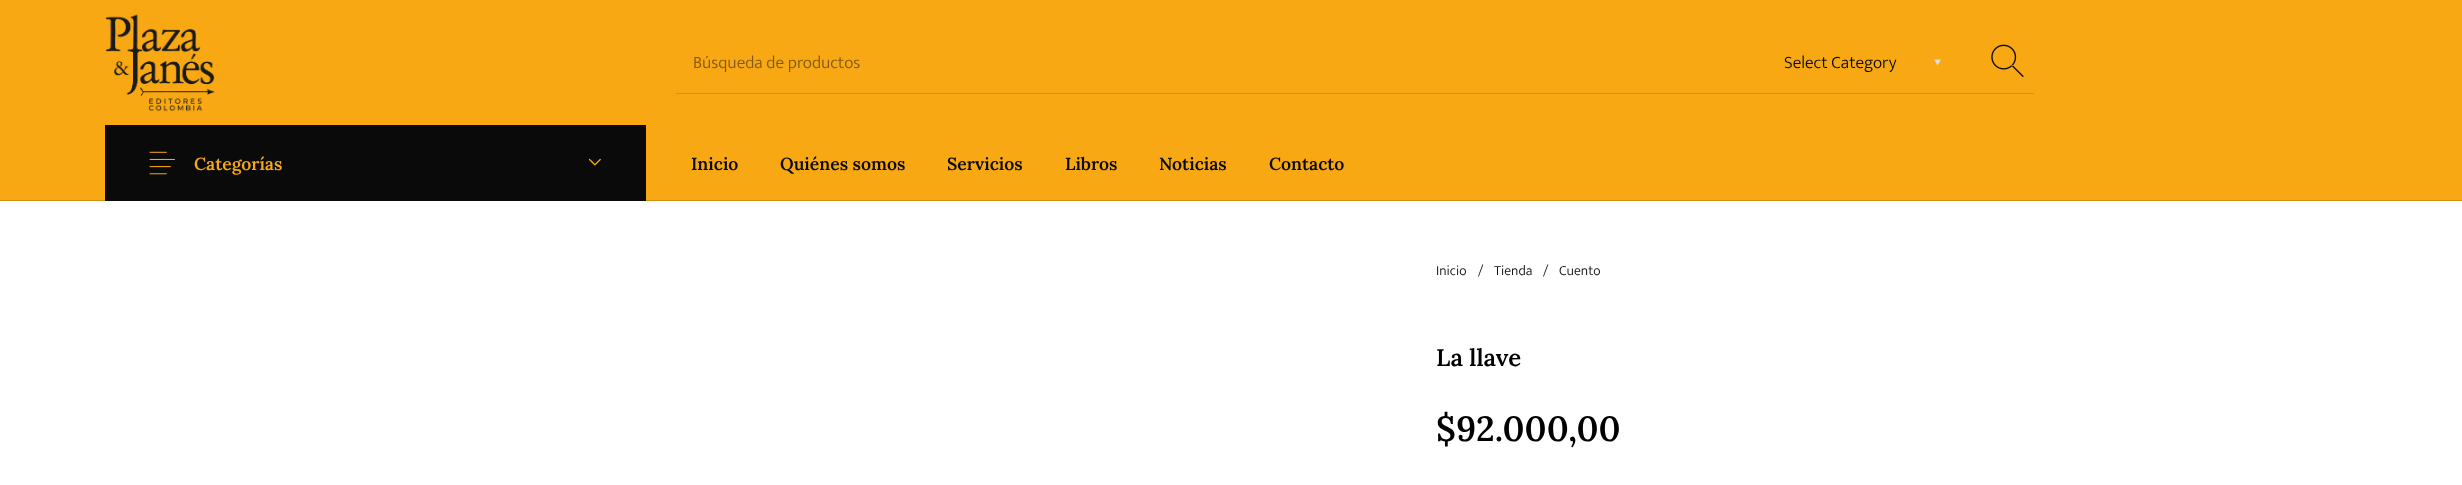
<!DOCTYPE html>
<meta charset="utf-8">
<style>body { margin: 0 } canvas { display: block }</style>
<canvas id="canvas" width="2462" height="485"></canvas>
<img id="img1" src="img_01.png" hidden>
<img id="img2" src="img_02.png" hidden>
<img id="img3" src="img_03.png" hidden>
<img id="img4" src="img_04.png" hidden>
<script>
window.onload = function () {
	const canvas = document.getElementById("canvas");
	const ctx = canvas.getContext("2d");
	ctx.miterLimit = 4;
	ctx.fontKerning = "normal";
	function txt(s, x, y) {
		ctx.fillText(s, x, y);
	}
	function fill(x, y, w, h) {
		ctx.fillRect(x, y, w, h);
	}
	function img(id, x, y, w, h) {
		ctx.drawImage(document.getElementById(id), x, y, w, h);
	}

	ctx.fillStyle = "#FFFFFF";
	fill(0, 0, 2462, 485);
	ctx.fillStyle = "#F7A812";
	fill(0, 0, 2462, 200);
	img("img1", 105, 14, 110, 98);
	ctx.fillStyle = "#D39011";
	fill(676, 93, 1358, 1);
	ctx.fillStyle = "#DDDDDD";
	ctx.beginPath();
	ctx.moveTo(1934, 59.5);
	ctx.lineTo(1941, 59.5);
	ctx.lineTo(1937.5, 65.5);
	ctx.closePath();
	ctx.fill();
	img("img2", 1991, 44, 33, 33);
	ctx.fillStyle = "#D39011";
	fill(0, 200, 2462, 1);
	ctx.fillStyle = "#0A0A0A";
	fill(105, 125, 541, 76);
	img("img3", 149, 151, 26, 24);
	img("img4", 588, 158, 13, 8);
	ctx.font = "300 17.5px Mukta";
	ctx.fillStyle = "#81590E";
	txt("Búsqueda de productos", 693, 68);
	ctx.fillStyle = "#0A0A0A";
	txt("Select Category", 1784, 68);
	ctx.font = "600 17.5px Lora";
	ctx.fillStyle = "#F7A812";
	txt("Categorías", 194, 170);
	ctx.fillStyle = "#0A0A0A";
	txt("Inicio", 691, 170);
	txt("Quiénes somos", 780, 170);
	txt("Servicios", 947, 170);
	txt("Libros", 1065, 170);
	txt("Noticias", 1159, 170);
	txt("Contacto", 1269, 170);
	ctx.font = "300 14px Mukta";
	txt("Inicio", 1436, 275);
	txt("/", 1478, 275);
	txt("Tienda", 1494, 275);
	txt("/", 1543, 275);
	txt("Cuento", 1559, 275);
	ctx.font = "600 24px Lora";
	ctx.fillStyle = "#000000";
	txt("La llave", 1436, 366);
	ctx.font = "600 35px Lora";
	txt("$92.000,00", 1436, 441);
};
</script>
